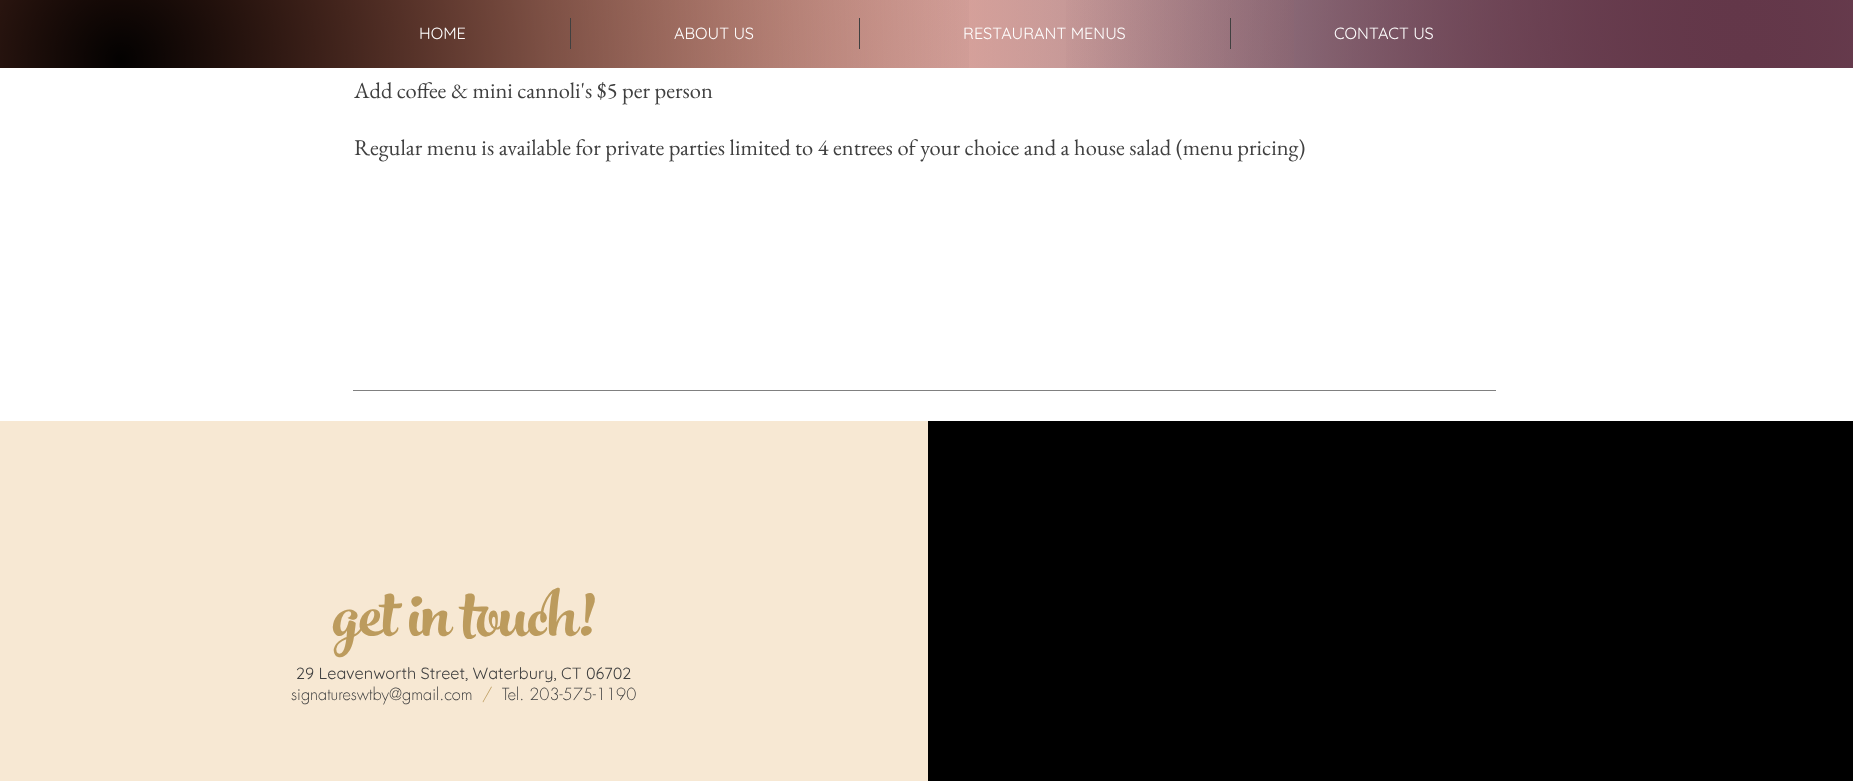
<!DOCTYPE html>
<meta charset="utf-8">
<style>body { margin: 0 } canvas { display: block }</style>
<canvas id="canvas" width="1853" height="781"></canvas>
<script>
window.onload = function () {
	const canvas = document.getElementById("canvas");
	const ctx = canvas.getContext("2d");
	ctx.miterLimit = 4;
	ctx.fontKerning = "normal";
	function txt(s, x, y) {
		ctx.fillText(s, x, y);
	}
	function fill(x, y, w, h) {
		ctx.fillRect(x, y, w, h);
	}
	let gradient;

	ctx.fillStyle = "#FFFFFF";
	fill(0, 0, 1853, 781);
	gradient = ctx.createRadialGradient(1737, 7.7, 0, 1737, 7.7, 1738);
	gradient.addColorStop(0, "#633749");
	gradient.addColorStop(0.7, "rgba(99, 55, 73, 0)");
	ctx.fillStyle = gradient;
	fill(550, 0, 1303, 68);
	gradient = ctx.createRadialGradient(114, 9, 0, 114, 9, 1740);
	gradient.addColorStop(0, "#F96E4A");
	gradient.addColorStop(0.7, "rgba(249, 110, 74, 0)");
	ctx.fillStyle = gradient;
	fill(0, 0, 1294, 68);
	gradient = ctx.createRadialGradient(121, 59, 0, 121, 59, 1734);
	gradient.addColorStop(0, "rgba(0, 0, 0, 0.99)");
	gradient.addColorStop(0.5, "rgba(0, 0, 0, 0)");
	ctx.fillStyle = gradient;
	fill(0, 0, 969, 68);
	gradient = ctx.createRadialGradient(1749, 60, 0, 1749, 60, 1750);
	gradient.addColorStop(0, "#633749");
	gradient.addColorStop(0.4, "rgba(99, 55, 73, 0)");
	ctx.fillStyle = gradient;
	fill(1066, 0, 787, 68);
	ctx.fillStyle = "#404040";
	fill(570, 18, 1, 31);
	fill(859, 18, 1, 31);
	fill(1230, 18, 1, 31);
	ctx.fillStyle = "#808080";
	fill(353, 390, 1143, 1);
	ctx.fillStyle = "#F7E8D3";
	fill(0, 421, 928, 360);
	ctx.fillStyle = "#000000";
	fill(928, 421, 925, 360);
	ctx.font = "16.25px Quicksand";
	ctx.fillStyle = "#FFFFFF";
	txt("HOME", 419, 39);
	txt("ABOUT US", 674, 39);
	txt("RESTAURANT MENUS", 963, 39);
	txt("CONTACT US", 1334, 39);
	ctx.font = "22.5px EB Garamond";
	ctx.fillStyle = "#404040";
	txt("Add coffee & mini cannoli's $5 per person", 354, 98);
	txt("Regular menu is available for private parties limited to 4 entrees of your choice and a house salad (menu pricing)", 354, 155);
	ctx.font = "100px 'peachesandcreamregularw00'";
	ctx.fillStyle = "#BC9B5D";
	txt("get in touch!", 333, 636);
	ctx.font = "16.25px Quicksand";
	ctx.fillStyle = "#404040";
	txt("29 Leavenworth Street, Waterbury, CT 06702", 296, 679);
	ctx.font = "300 16.25px futura";
	txt("signatureswtby@gmail.com", 291, 700);
	ctx.fillStyle = "#BC9B5D";
	txt("/", 482, 700);
	ctx.fillStyle = "#404040";
	txt("Tel. 203-575-1190", 502, 700);
};
</script>
